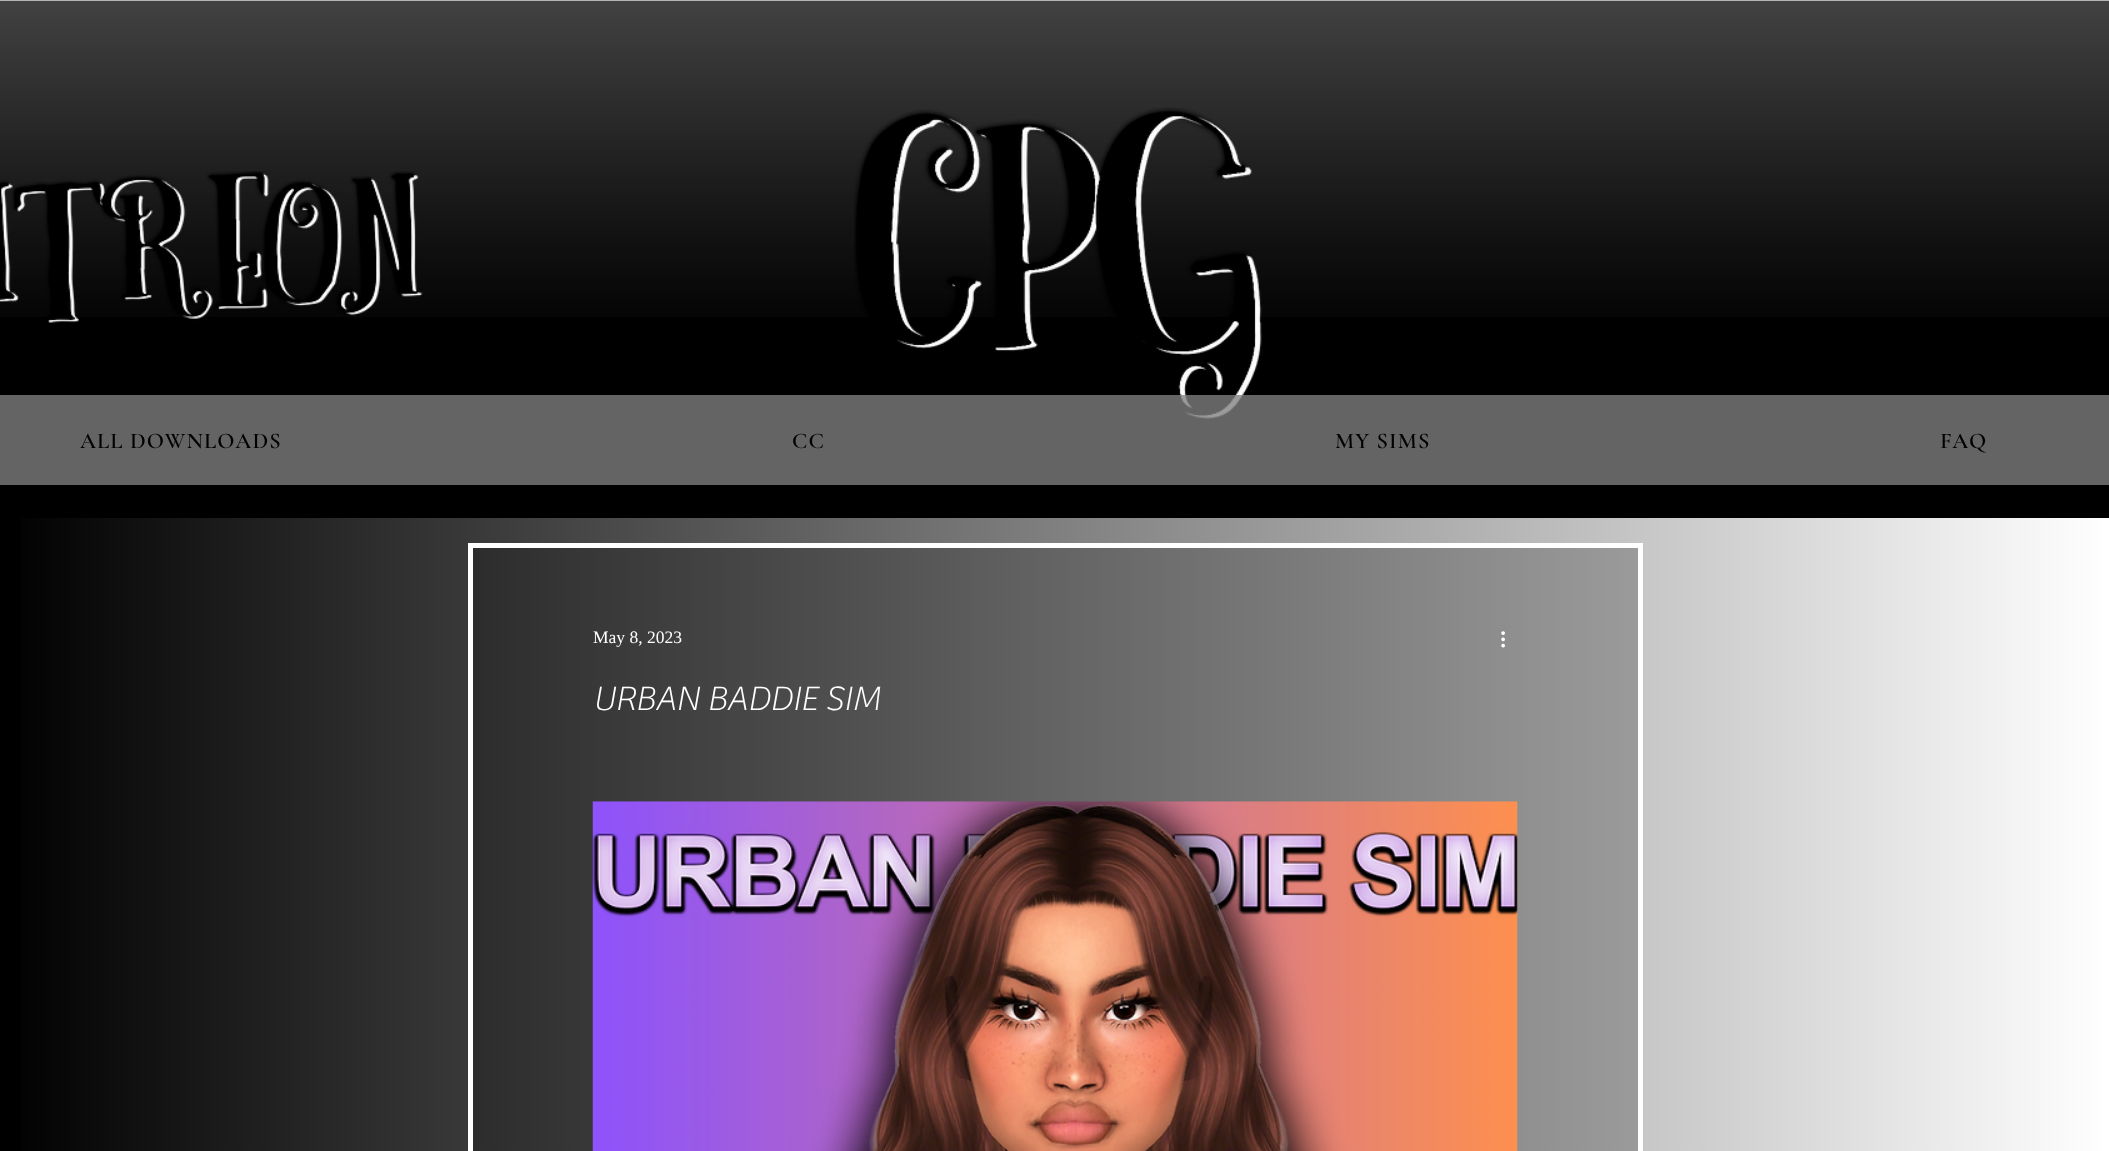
<!DOCTYPE html>
<meta charset="utf-8">
<style>body { margin: 0 } canvas { display: block }</style>
<canvas id="canvas" width="2109" height="1151"></canvas>
<img id="img1" src="img_01.png" hidden>
<img id="img2" src="img_02.png" hidden>
<img id="img3" src="img_03.png" hidden>
<img id="img4" src="img_04.png" hidden>
<img id="img5" src="img_05.png" hidden>
<script>
window.onload = function () {
	const canvas = document.getElementById("canvas");
	const ctx = canvas.getContext("2d");
	ctx.miterLimit = 4;
	ctx.fontKerning = "normal";
	function txt(s, x, y) {
		ctx.fillText(s, x, y);
	}
	function fill(x, y, w, h) {
		ctx.fillRect(x, y, w, h);
	}
	function img(id, x, y, w, h) {
		ctx.drawImage(document.getElementById(id), x, y, w, h);
	}
	let gradient;

	ctx.fillStyle = "#000000";
	fill(0, 0, 2109, 1151);
	img("img1", 0, 1, 2109, 316);
	ctx.fillStyle = "#B3B3B3";
	fill(0, 0, 2109, 1);
	img("img2", 0, 171, 423, 152);
	img("img3", 854, 107, 408, 313);
	ctx.fillStyle = "rgba(128, 128, 128, 0.78)";
	fill(0, 395, 2109, 90);
	gradient = ctx.createLinearGradient(0, 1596, 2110, 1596);
	gradient.addColorStop(0, "#000000");
	gradient.addColorStop(1, "#FFFFFF");
	ctx.fillStyle = gradient;
	fill(21, 518, 2088, 633);
	gradient = ctx.createLinearGradient(0, 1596, 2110, 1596);
	gradient.addColorStop(0, "#000000");
	gradient.addColorStop(1, "#C7C7C7");
	ctx.fillStyle = gradient;
	fill(473, 548, 1165, 603);
	ctx.strokeStyle = "#FFFFFF";
	ctx.lineWidth = 5;
	ctx.strokeRect(470.5, 545.5, 1170, 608);
	img("img4", 1501, 631, 4, 17);
	img("img5", 592, 801, 926, 350);
	ctx.letterSpacing = "1.1px";
	ctx.font = "600 22.5px Cormorant Garamond";
	ctx.fillStyle = "#000000";
	txt("ALL DOWNLOADS", 80, 448);
	txt("CC", 792, 448);
	txt("MY SIMS", 1335, 448);
	txt("FAQ", 1940, 448);
	ctx.letterSpacing = "0px";
	ctx.font = "17.5px Liberation Serif";
	ctx.fillStyle = "#FFFFFF";
	txt("May 8, 2023", 593, 643);
	ctx.font = "100 35px 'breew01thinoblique'";
	txt("URBAN BADDIE SIM", 593, 710);
};
</script>
